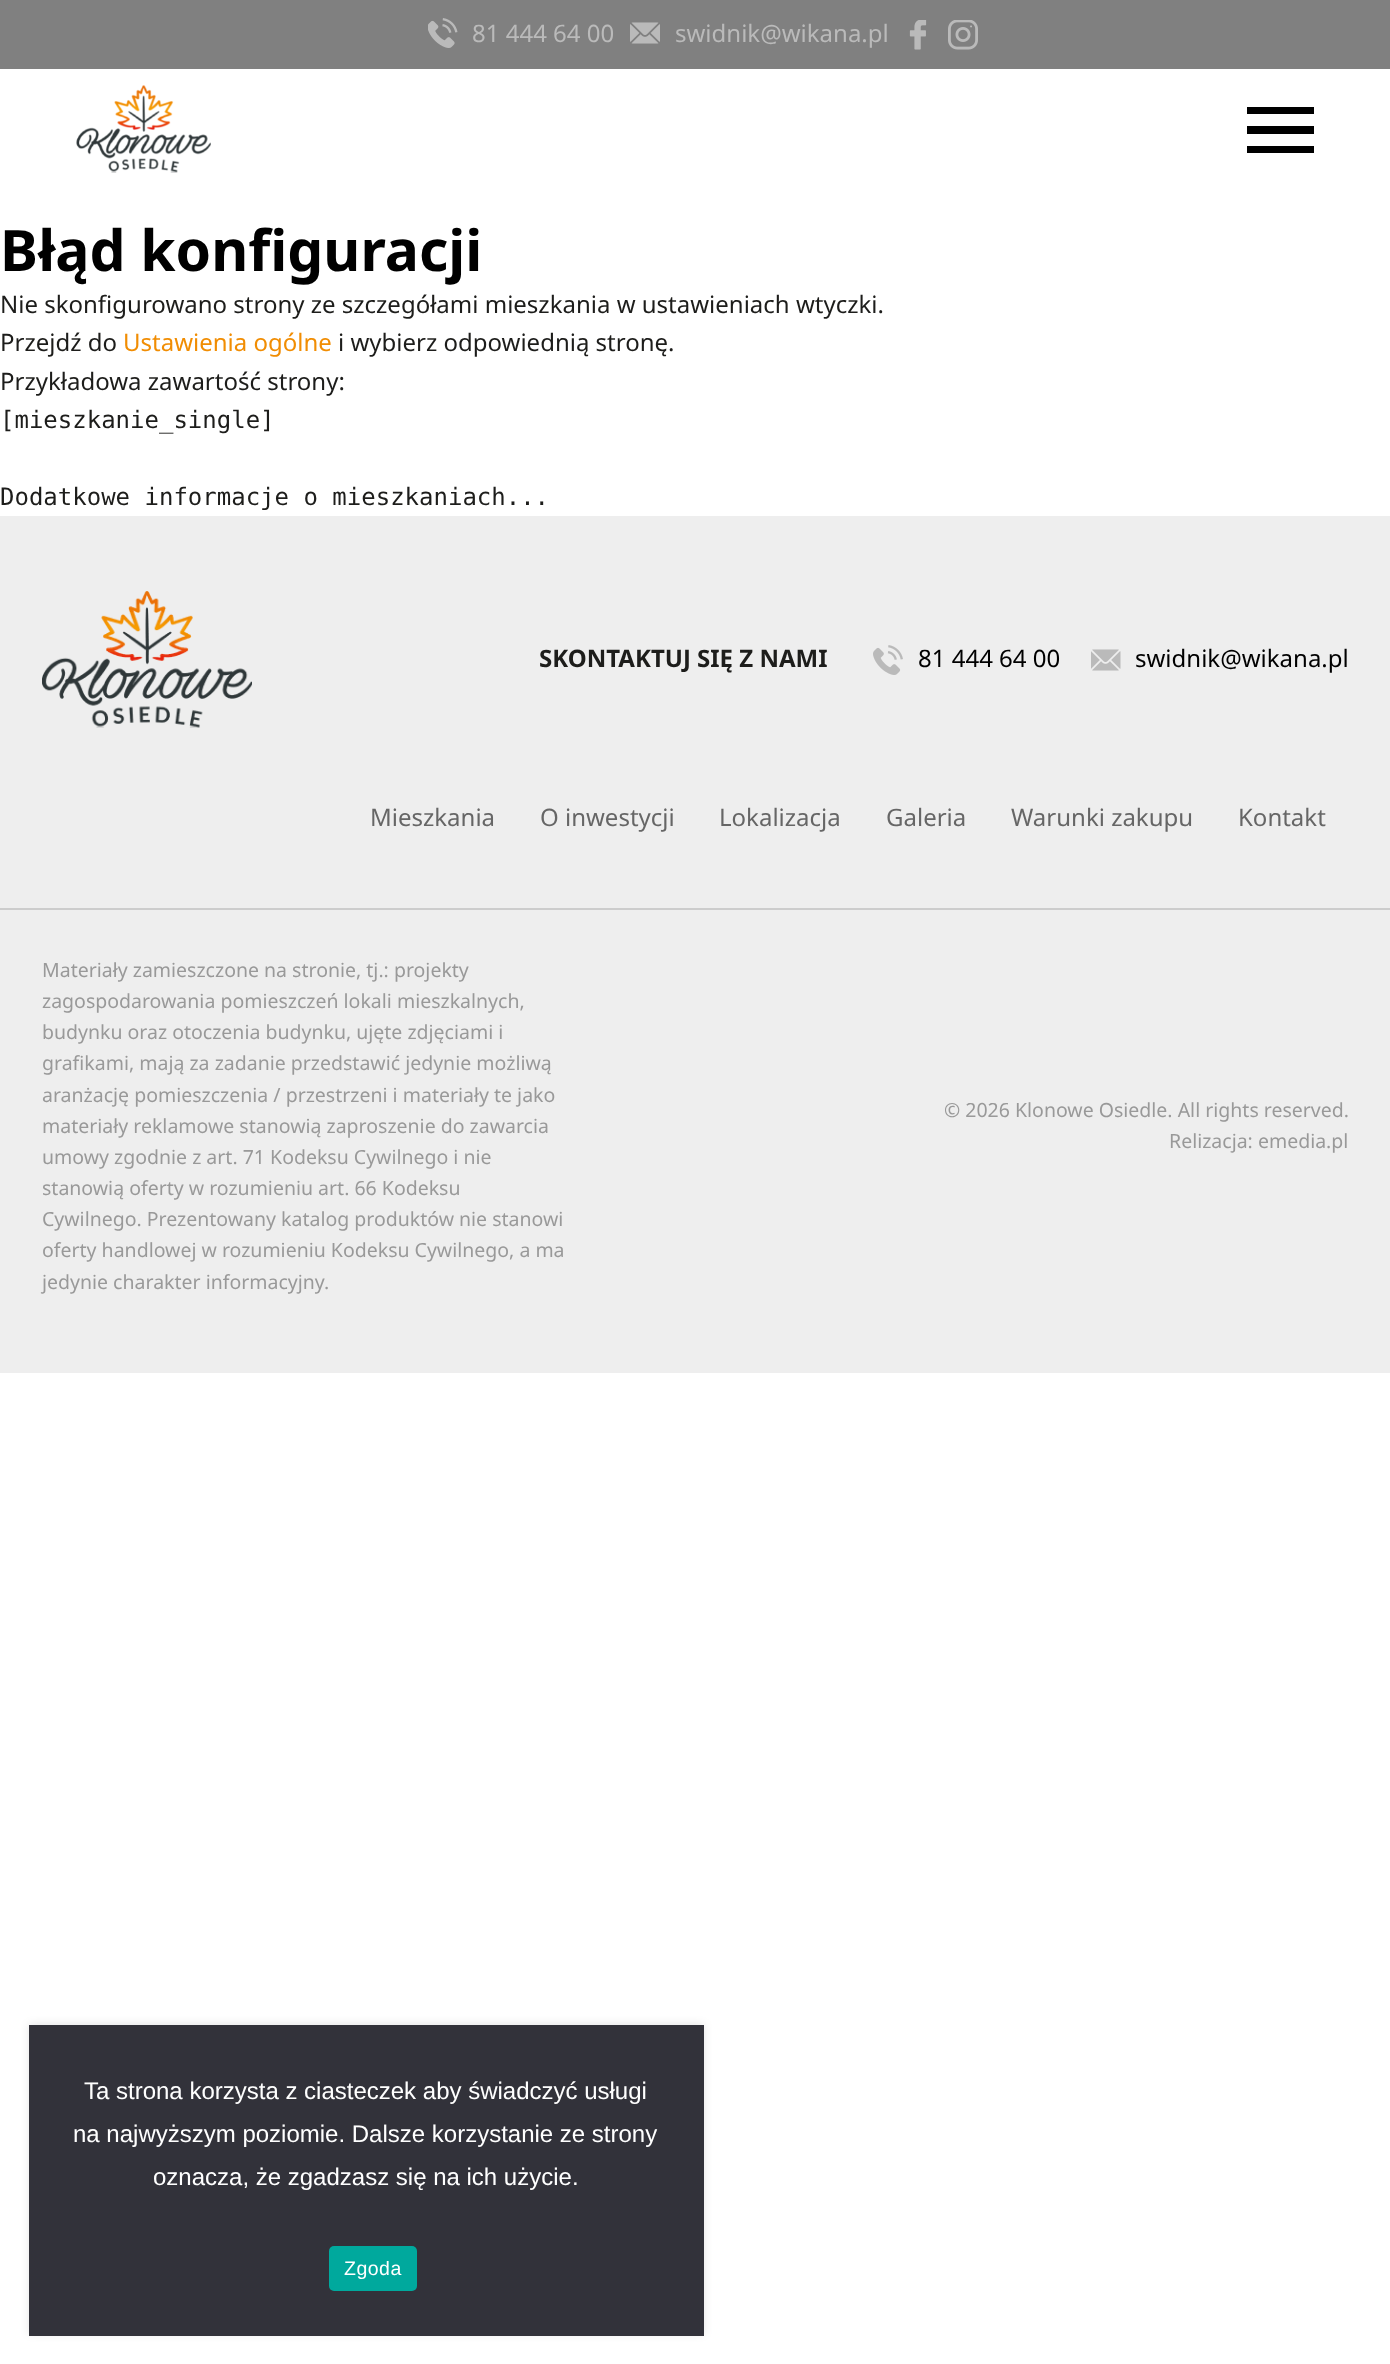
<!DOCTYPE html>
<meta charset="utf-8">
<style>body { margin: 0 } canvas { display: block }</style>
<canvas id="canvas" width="1390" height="2364"></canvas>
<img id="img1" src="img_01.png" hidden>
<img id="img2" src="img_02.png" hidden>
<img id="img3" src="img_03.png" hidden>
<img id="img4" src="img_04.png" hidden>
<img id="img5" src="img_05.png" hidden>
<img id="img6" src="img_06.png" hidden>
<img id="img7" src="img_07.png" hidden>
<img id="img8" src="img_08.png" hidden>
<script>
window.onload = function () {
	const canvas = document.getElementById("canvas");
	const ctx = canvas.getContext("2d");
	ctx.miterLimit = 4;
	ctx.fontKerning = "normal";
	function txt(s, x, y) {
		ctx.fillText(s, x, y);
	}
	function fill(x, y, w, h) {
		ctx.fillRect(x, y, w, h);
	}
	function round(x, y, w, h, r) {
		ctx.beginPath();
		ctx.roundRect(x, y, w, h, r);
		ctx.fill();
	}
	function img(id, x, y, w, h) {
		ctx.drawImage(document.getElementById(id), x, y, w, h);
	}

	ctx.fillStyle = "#FFFFFF";
	fill(0, 0, 1390, 2364);
	ctx.fillStyle = "#808080";
	fill(0, 0, 1390, 69);
	img("img1", 428, 18, 30, 30);
	img("img2", 630, 22, 30, 22);
	img("img3", 909, 20, 18, 30);
	img("img4", 948, 20, 30, 30);
	img("img5", 76, 85, 135, 88);
	ctx.fillStyle = "#000000";
	fill(1247, 107, 67, 7);
	fill(1247, 126, 67, 8);
	fill(1247, 146, 67, 7);
	ctx.fillStyle = "#EEEEEE";
	fill(0, 516, 1390, 857);
	img("img6", 42, 591, 210, 137);
	img("img7", 873, 645, 30, 30);
	img("img8", 1091, 649, 30, 22);
	ctx.fillStyle = "#CCCCCC";
	fill(0, 908, 1390, 2);
	ctx.fillStyle = "rgba(0, 0, 0, 0.1)";
	ctx.filter = "blur(4px)";
	ctx.beginPath();
	ctx.rect(29, 2024, 675, 310);
	ctx.fill();
	ctx.filter = "none";
	ctx.fillStyle = "#32323A";
	fill(29, 2025, 675, 311);
	ctx.fillStyle = "#00A99D";
	round(329, 2246, 88, 45, 5);
	ctx.font = "24px Noto Sans";
	ctx.fillStyle = "#BABABA";
	txt("81 444 64 00", 472, 42);
	txt("swidnik@wikana.pl", 675, 42);
	ctx.font = "bold 57px Noto Sans";
	ctx.fillStyle = "#000000";
	txt("Błąd konfiguracji", 0, 271);
	ctx.font = "24px Noto Sans";
	ctx.fillStyle = "#1D1D1B";
	txt("Nie skonfigurowano strony ze szczegółami mieszkania w ustawieniach wtyczki.", 0, 313);
	txt("Przejdź do", 0, 351);
	ctx.fillStyle = "#F18D03";
	txt("Ustawienia ogólne", 123, 351);
	ctx.fillStyle = "#1D1D1B";
	txt("i wybierz odpowiednią stronę.", 338, 351);
	txt("Przykładowa zawartość strony:", 0, 390);
	ctx.font = "24px DejaVu Sans Mono";
	txt("[mieszkanie_single]", 0, 428);
	txt("Dodatkowe informacje o mieszkaniach...", 0, 505);
	ctx.font = "bold 24px Noto Sans";
	txt("SKONTAKTUJ SIĘ Z NAMI", 539, 667);
	ctx.font = "24px Noto Sans";
	ctx.fillStyle = "#000000";
	txt("81 444 64 00", 918, 667);
	txt("swidnik@wikana.pl", 1135, 667);
	ctx.fillStyle = "#666666";
	txt("Mieszkania", 370, 826);
	txt("O inwestycji", 540, 826);
	txt("Lokalizacja", 719, 826);
	txt("Galeria", 886, 826);
	txt("Warunki zakupu", 1011, 826);
	txt("Kontakt", 1238, 826);
	ctx.font = "19.5px Noto Sans";
	ctx.fillStyle = "#999999";
	txt("Materiały zamieszczone na stronie, tj.: projekty", 42, 977);
	txt("zagospodarowania pomieszczeń lokali mieszkalnych,", 42, 1008);
	txt("budynku oraz otoczenia budynku, ujęte zdjęciami i", 42, 1039);
	txt("grafikami, mają za zadanie przedstawić jedynie możliwą", 42, 1070);
	txt("aranżację pomieszczenia / przestrzeni i materiały te jako", 42, 1102);
	txt("materiały reklamowe stanowią zaproszenie do zawarcia", 42, 1133);
	txt("umowy zgodnie z art. 71 Kodeksu Cywilnego i nie", 42, 1164);
	txt("stanowią oferty w rozumieniu art. 66 Kodeksu", 42, 1195);
	txt("Cywilnego. Prezentowany katalog produktów nie stanowi", 42, 1226);
	txt("oferty handlowej w rozumieniu Kodeksu Cywilnego, a ma", 42, 1257);
	txt("jedynie charakter informacyjny.", 42, 1289);
	txt("© 2026 Klonowe Osiedle. All rights reserved.", 944, 1117);
	txt("Relizacja: emedia.pl", 1169, 1148);
	ctx.font = "24px Liberation Sans";
	ctx.fillStyle = "#FFFFFF";
	txt("Ta strona korzysta z ciasteczek aby świadczyć usługi", 84, 2099);
	txt("na najwyższym poziomie. Dalsze korzystanie ze strony", 73, 2142);
	txt("oznacza, że zgadzasz się na ich użycie.", 153, 2185);
	ctx.letterSpacing = "0.5px";
	ctx.font = "19.5px Liberation Sans";
	txt("Zgoda", 344, 2275);
};
</script>
